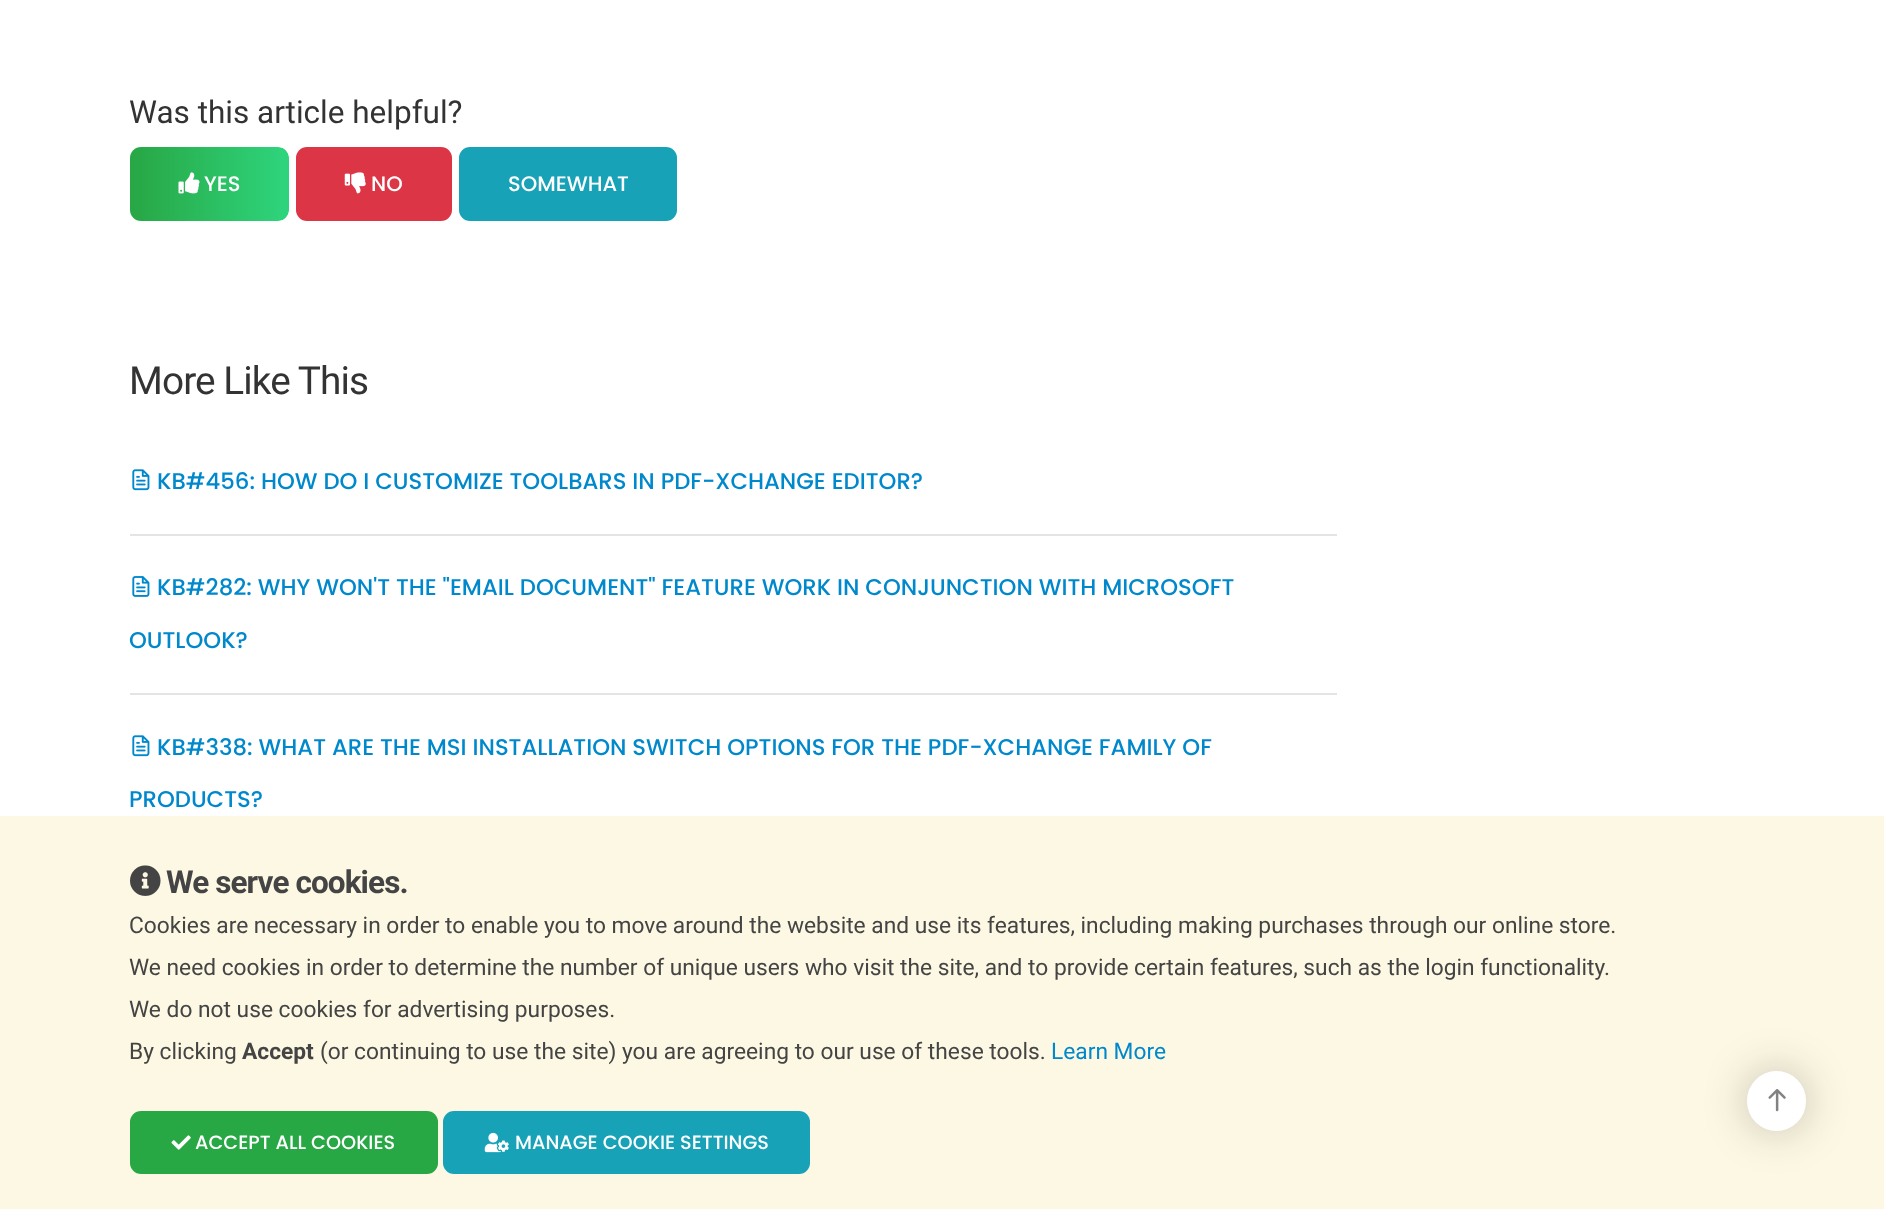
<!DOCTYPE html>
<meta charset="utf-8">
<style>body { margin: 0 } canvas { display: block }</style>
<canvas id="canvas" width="1884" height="1209"></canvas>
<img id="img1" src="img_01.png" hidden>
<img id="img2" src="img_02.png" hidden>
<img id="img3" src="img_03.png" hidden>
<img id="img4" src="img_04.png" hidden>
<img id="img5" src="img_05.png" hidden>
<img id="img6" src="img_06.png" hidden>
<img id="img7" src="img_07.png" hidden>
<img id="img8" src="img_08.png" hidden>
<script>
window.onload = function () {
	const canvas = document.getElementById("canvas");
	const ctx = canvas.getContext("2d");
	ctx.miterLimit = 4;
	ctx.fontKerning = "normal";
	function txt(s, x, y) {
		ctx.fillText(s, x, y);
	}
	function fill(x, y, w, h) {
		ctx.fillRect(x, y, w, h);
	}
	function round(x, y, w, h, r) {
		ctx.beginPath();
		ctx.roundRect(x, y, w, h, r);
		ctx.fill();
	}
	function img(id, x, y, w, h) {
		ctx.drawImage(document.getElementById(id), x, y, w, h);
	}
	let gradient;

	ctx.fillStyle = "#FFFFFF";
	fill(0, 0, 1884, 1209);
	ctx.save();
	ctx.beginPath();
	ctx.roundRect(130, 147, 159, 74, 11);
	ctx.clip();
	gradient = ctx.createLinearGradient(-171, 184, 133, 184);
	gradient.addColorStop(0, "#28A745");
	gradient.addColorStop(0.5, "#2ED47C");
	gradient.addColorStop(1, "#28A745");
	ctx.fillStyle = gradient;
	fill(130, 147, 3, 74);
	gradient = ctx.createLinearGradient(133, 184, 438, 184);
	gradient.addColorStop(0, "#28A745");
	gradient.addColorStop(0.5, "#2ED47C");
	gradient.addColorStop(1, "#28A745");
	ctx.fillStyle = gradient;
	ctx.beginPath();
	ctx.roundRect(133, 147, 156, 74, [0, 11, 11, 0]);
	ctx.fill();
	ctx.restore();
	img("img1", 178, 172, 22, 22);
	ctx.fillStyle = "#DC3545";
	round(296, 147, 156, 74, 11);
	img("img2", 344, 172, 22, 22);
	ctx.fillStyle = "#17A2B8";
	round(459, 147, 218, 74, 11);
	ctx.fillStyle = "#E4E4E4";
	fill(130, 534, 1207, 2);
	img("img3", 132, 469, 18, 22);
	fill(130, 693, 1207, 2);
	img("img4", 132, 576, 18, 21);
	img("img3", 132, 735, 18, 22);
	ctx.fillStyle = "#FCF8E3";
	fill(0, 816, 1884, 393);
	img("img5", 130, 865, 31, 31);
	ctx.fillStyle = "#28A745";
	round(130, 1111, 308, 63, 11);
	img("img6", 171, 1135, 20, 15);
	ctx.fillStyle = "#17A2B8";
	round(443, 1111, 367, 63, 11);
	img("img7", 484, 1132, 25, 21);
	ctx.fillStyle = "rgba(23, 23, 23, 0.25)";
	ctx.filter = "blur(22px)";
	ctx.beginPath();
	ctx.roundRect(1747, 1071, 59, 60, 29.5);
	ctx.fill();
	ctx.filter = "none";
	ctx.fillStyle = "#FFFFFF";
	round(1747, 1071, 59, 60, 29.5);
	img("img8", 1768, 1089, 18, 23);
	ctx.font = "31.5px Roboto";
	ctx.fillStyle = "#333333";
	txt("Was this article helpful?", 129, 123);
	ctx.font = "500 21px Poppins";
	ctx.fillStyle = "#FFFFFF";
	txt("YES", 204, 191);
	txt("NO", 371, 191);
	txt("SOMEWHAT", 508, 191);
	ctx.letterSpacing = "-0.9px";
	ctx.font = "38.75px Roboto";
	ctx.fillStyle = "#333333";
	txt("More Like This", 129, 394);
	ctx.letterSpacing = "0px";
	ctx.font = "500 22.75px Poppins";
	ctx.fillStyle = "#0088CC";
	txt("KB#456: HOW DO I CUSTOMIZE TOOLBARS IN PDF-XCHANGE EDITOR?", 157, 489);
	txt("KB#282: WHY WON'T THE \"EMAIL DOCUMENT\" FEATURE WORK IN CONJUNCTION WITH MICROSOFT", 157, 595);
	txt("OUTLOOK?", 129, 648);
	txt("KB#338: WHAT ARE THE MSI INSTALLATION SWITCH OPTIONS FOR THE PDF-XCHANGE FAMILY OF", 157, 755);
	txt("PRODUCTS?", 129, 807);
	ctx.letterSpacing = "-0.9px";
	ctx.font = "bold 31.5px Roboto";
	ctx.fillStyle = "#444444";
	txt("We serve cookies.", 166, 893);
	ctx.letterSpacing = "0px";
	ctx.font = "22.75px Roboto";
	txt("Cookies are necessary in order to enable you to move around the website and use its features, including making purchases through our online store.", 129, 933);
	txt("We need cookies in order to determine the number of unique users who visit the site, and to provide certain features, such as the login functionality.", 129, 975);
	txt("We do not use cookies for advertising purposes.", 129, 1017);
	txt("By clicking", 129, 1059);
	ctx.font = "bold 22.75px Roboto";
	txt("Accept", 242, 1059);
	ctx.font = "22.75px Roboto";
	txt("(or continuing to use the site) you are agreeing to our use of these tools.", 320, 1059);
	ctx.fillStyle = "#0088CC";
	txt("Learn More", 1051, 1059);
	ctx.font = "500 19.25px Poppins";
	ctx.fillStyle = "#FFFFFF";
	txt("ACCEPT ALL COOKIES", 195, 1149);
	txt("MANAGE COOKIE SETTINGS", 515, 1149);
};
</script>
